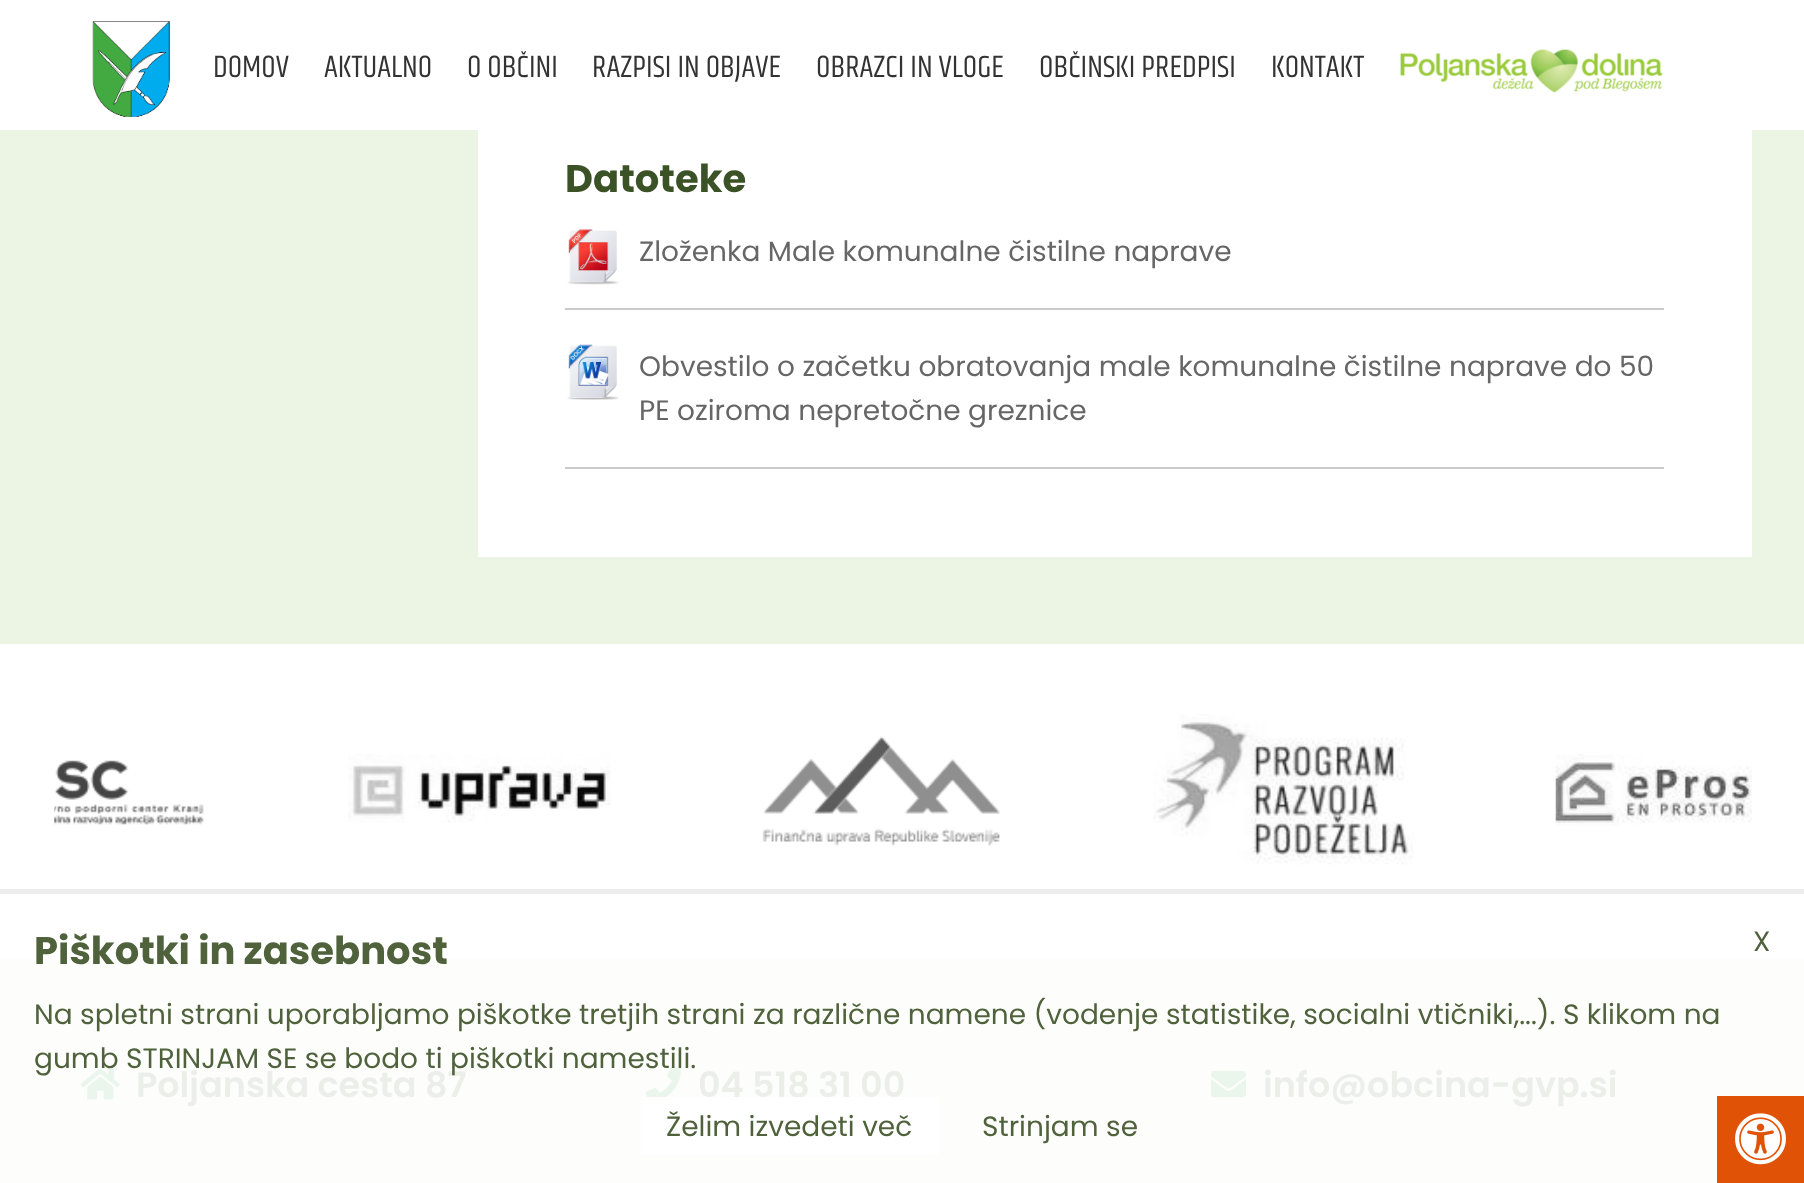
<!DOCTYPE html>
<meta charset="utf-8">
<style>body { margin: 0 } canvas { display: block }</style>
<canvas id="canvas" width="1804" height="1183"></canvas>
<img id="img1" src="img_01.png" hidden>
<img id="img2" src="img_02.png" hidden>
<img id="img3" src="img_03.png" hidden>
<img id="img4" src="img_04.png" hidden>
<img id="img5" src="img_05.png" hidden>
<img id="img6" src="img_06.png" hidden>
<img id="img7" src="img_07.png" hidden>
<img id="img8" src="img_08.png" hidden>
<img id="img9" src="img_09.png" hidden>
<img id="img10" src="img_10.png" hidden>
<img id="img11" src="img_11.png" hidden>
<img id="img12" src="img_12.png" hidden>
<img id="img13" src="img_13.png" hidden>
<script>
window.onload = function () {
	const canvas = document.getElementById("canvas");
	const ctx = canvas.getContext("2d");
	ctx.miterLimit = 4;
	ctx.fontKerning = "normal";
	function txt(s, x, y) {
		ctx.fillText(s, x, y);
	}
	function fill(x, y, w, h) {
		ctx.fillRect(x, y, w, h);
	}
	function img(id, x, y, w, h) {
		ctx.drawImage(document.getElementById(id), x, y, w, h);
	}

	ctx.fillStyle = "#FFFFFF";
	fill(0, 0, 1804, 1183);
	img("img1", 92, 21, 78, 96);
	img("img2", 1399, 49, 264, 44);
	ctx.fillStyle = "#ECF5E4";
	fill(0, 130, 1804, 514);
	ctx.fillStyle = "#FFFFFF";
	fill(478, 130, 1274, 427);
	img("img3", 567, 229, 52, 56);
	ctx.fillStyle = "#CBCBCB";
	fill(565, 308, 1099, 2);
	img("img4", 567, 344, 52, 56);
	fill(565, 467, 1099, 2);
	img("img5", 54, 760, 150, 65);
	img("img6", 348, 754, 263, 69);
	img("img7", 762, 736, 238, 110);
	img("img8", 1153, 714, 261, 151);
	img("img9", 1555, 754, 197, 72);
	ctx.fillStyle = "#FDFEFC";
	fill(0, 959, 1804, 224);
	img("img10", 80, 1068, 40, 32);
	img("img11", 645, 1066, 36, 36);
	img("img12", 1211, 1071, 35, 27);
	ctx.fillStyle = "#EDEDED";
	fill(0, 889, 1804, 5);
	ctx.fillStyle = "#E05206";
	fill(1717, 1096, 87, 87);
	img("img13", 1735, 1113, 51, 52);
	ctx.font = "31.5px Khand";
	ctx.fillStyle = "#333333";
	txt("DOMOV", 213, 77);
	txt("AKTUALNO", 324, 77);
	txt("O OBČINI", 467, 77);
	txt("RAZPISI IN OBJAVE", 592, 77);
	txt("OBRAZCI IN VLOGE", 816, 77);
	txt("OBČINSKI PREDPISI", 1039, 77);
	txt("KONTAKT", 1271, 77);
	ctx.font = "bold 38.5px Poppins";
	ctx.fillStyle = "#3B5126";
	txt("Datoteke", 565, 192);
	ctx.font = "28px Poppins";
	ctx.fillStyle = "#666666";
	txt("Zloženka Male komunalne čistilne naprave", 639, 261);
	txt("Obvestilo o začetku obratovanja male komunalne čistilne naprave do 50", 639, 376);
	txt("PE oziroma nepretočne greznice", 639, 420);
	ctx.font = "600 35px Poppins";
	ctx.fillStyle = "#EBEEE9";
	txt("Poljanska cesta 87", 136, 1097);
	txt("04 518 31 00", 698, 1097);
	txt("info@obcina-gvp.si", 1263, 1097);
	ctx.font = "bold 38.5px Poppins";
	ctx.fillStyle = "#4F623C";
	txt("Piškotki in zasebnost", 34, 964);
	ctx.font = "28px Poppins";
	txt("X", 1753, 951);
	txt("Na spletni strani uporabljamo piškotke tretjih strani za različne namene (vodenje statistike, socialni vtičniki,...). S klikom na", 34, 1024);
	txt("gumb STRINJAM SE se bodo ti piškotki namestili.", 34, 1068);
	ctx.fillStyle = "rgba(255, 255, 255, 0.9)";
	fill(641, 1097, 297, 58);
	ctx.fillStyle = "#4F623C";
	txt("Želim izvedeti več", 666, 1136);
	txt("Strinjam se", 982, 1136);
};
</script>
